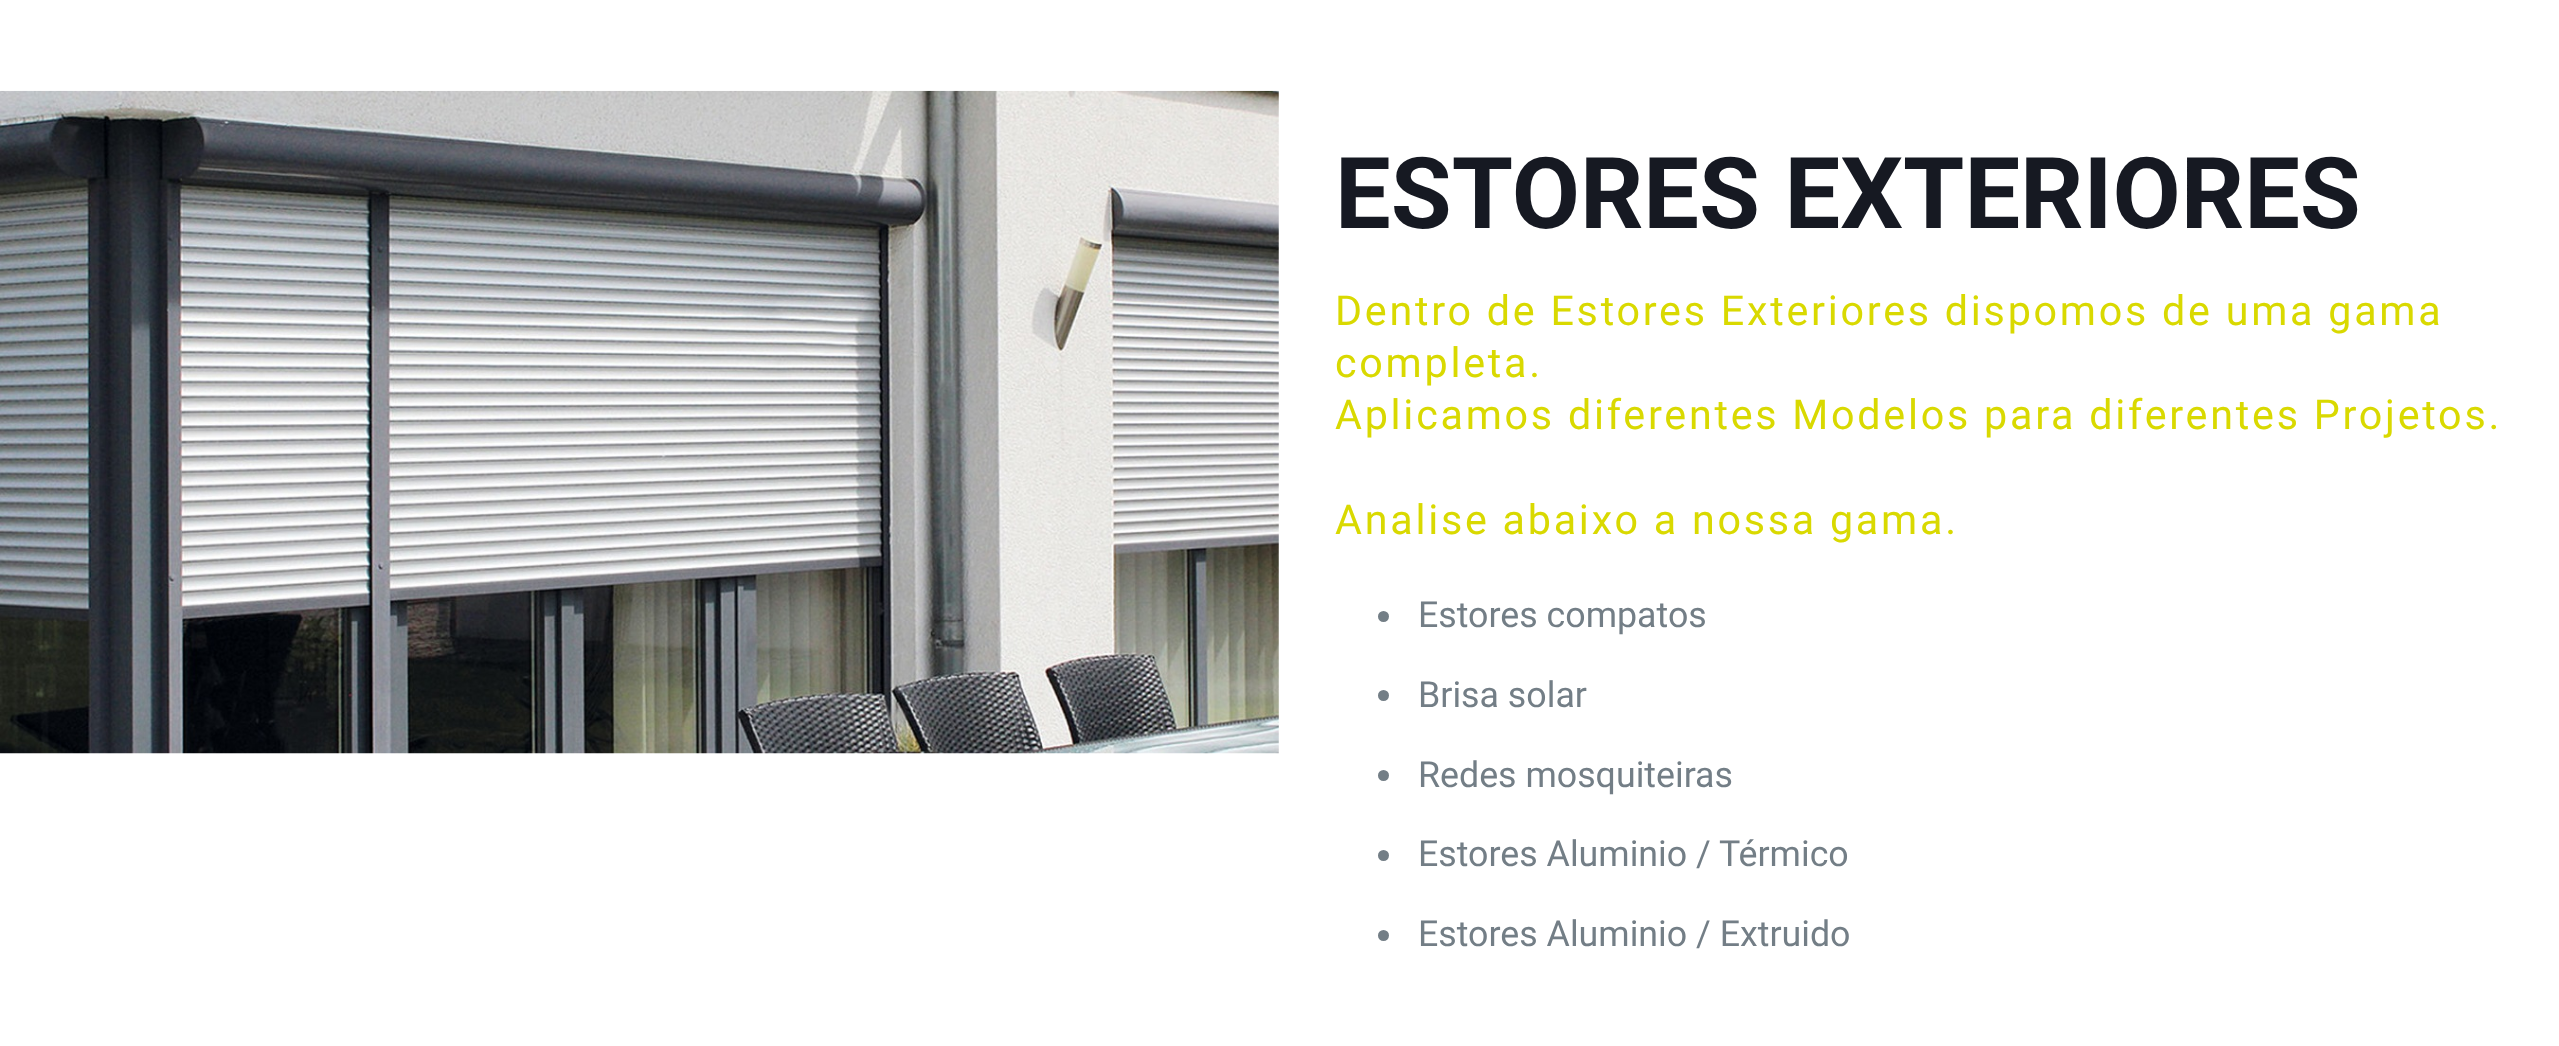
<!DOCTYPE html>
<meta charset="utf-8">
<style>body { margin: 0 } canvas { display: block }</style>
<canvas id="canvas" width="2559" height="1046"></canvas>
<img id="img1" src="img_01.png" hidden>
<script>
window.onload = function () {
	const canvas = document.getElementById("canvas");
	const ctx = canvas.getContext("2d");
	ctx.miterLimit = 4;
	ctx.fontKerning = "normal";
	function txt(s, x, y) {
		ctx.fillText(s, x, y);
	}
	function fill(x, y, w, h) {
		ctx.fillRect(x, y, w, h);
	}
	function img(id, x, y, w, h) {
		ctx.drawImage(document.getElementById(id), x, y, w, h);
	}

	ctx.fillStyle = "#FFFFFF";
	fill(0, 0, 2559, 1046);
	img("img1", 0, 90, 1279, 664);
	ctx.fillStyle = "#737E86";
	ctx.beginPath();
	ctx.arc(1383.5, 616.5, 5.5, 0, Math.PI * 2);
	ctx.fill();
	ctx.beginPath();
	ctx.arc(1383.5, 695.5, 5.5, 0, Math.PI * 2);
	ctx.fill();
	ctx.beginPath();
	ctx.arc(1383.5, 775.5, 5.5, 0, Math.PI * 2);
	ctx.fill();
	ctx.beginPath();
	ctx.arc(1383.5, 855.5, 5.5, 0, Math.PI * 2);
	ctx.fill();
	ctx.beginPath();
	ctx.arc(1383.5, 935.5, 5.5, 0, Math.PI * 2);
	ctx.fill();
	ctx.font = "bold 99px Roboto";
	ctx.fillStyle = "#161922";
	txt("ESTORES EXTERIORES", 1335, 228);
	ctx.letterSpacing = "2.75px";
	ctx.font = "41.25px Roboto";
	ctx.fillStyle = "#D9D900";
	txt("Dentro de Estores Exteriores dispomos de uma gama", 1335, 325);
	txt("completa.", 1335, 377);
	txt("Aplicamos diferentes Modelos para diferentes Projetos.", 1335, 429);
	txt("Analise abaixo a nossa gama.", 1335, 534);
	ctx.letterSpacing = "0px";
	ctx.font = "35.75px Roboto";
	ctx.fillStyle = "#737E86";
	txt("Estores compatos", 1418, 627);
	txt("Brisa solar", 1418, 707);
	txt("Redes mosquiteiras", 1418, 787);
	txt("Estores Aluminio / Térmico", 1418, 866);
	txt("Estores Aluminio / Extruido", 1418, 946);
};
</script>
